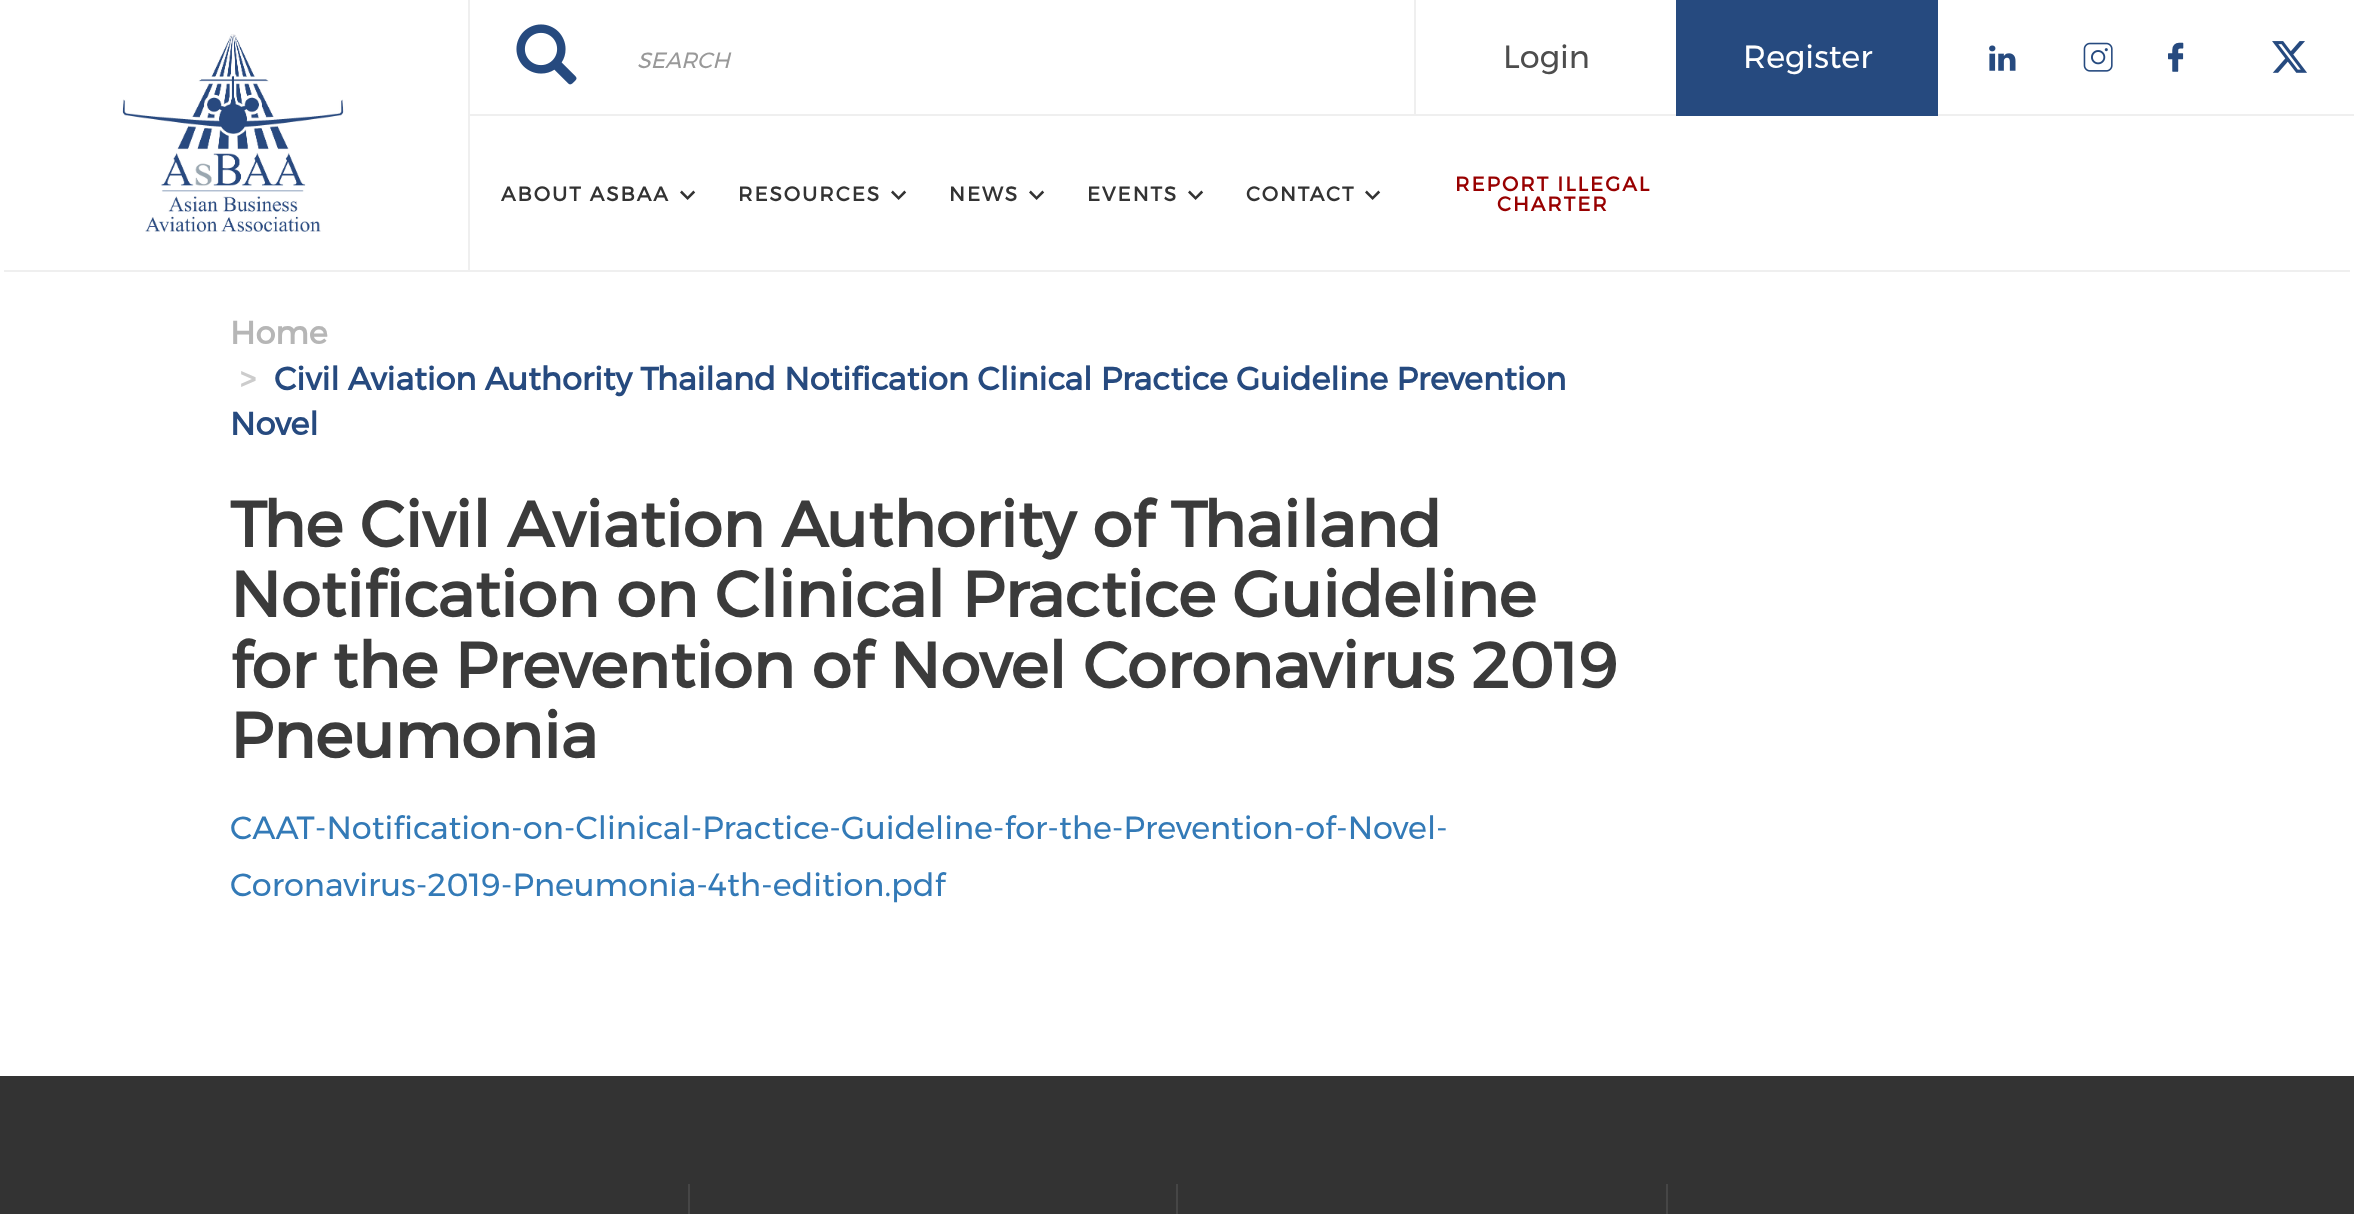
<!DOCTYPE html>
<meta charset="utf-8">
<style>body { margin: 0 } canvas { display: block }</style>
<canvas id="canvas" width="2354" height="1214"></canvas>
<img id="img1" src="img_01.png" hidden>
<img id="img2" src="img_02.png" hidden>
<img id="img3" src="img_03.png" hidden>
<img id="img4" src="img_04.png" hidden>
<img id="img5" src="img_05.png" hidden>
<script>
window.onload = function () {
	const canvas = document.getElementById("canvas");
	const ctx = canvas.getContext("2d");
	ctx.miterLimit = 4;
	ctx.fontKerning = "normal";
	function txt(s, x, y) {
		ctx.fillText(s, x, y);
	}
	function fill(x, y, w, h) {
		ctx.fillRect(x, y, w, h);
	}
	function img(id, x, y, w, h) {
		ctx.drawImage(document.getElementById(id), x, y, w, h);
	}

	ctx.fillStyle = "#FFFFFF";
	fill(0, 0, 2354, 1214);
	ctx.fillStyle = "#EFEFEF";
	fill(4, 270, 2346, 2);
	fill(468, 0, 2, 272);
	img("img1", 122, 34, 222, 198);
	fill(470, 114, 1884, 2);
	img("img2", 516, 24, 61, 61);
	fill(1414, 0, 2, 116);
	ctx.fillStyle = "#264A7F";
	fill(1676, 0, 262, 116);
	img("img3", 1989, 45, 27, 26);
	img("img4", 2083, 42, 30, 30);
	img("img5", 2272, 41, 35, 32);
	ctx.fillStyle = "#333333";
	fill(0, 1076, 2354, 138);
	ctx.fillStyle = "#464646";
	fill(688, 1184, 2, 30);
	fill(1176, 1184, 2, 30);
	fill(1666, 1184, 2, 30);
	ctx.font = "italic 22px Montserrat";
	ctx.fillStyle = "#999999";
	txt("SEARCH", 637, 68);
	ctx.font = "32px Montserrat";
	ctx.fillStyle = "#4D4D4D";
	txt("Login", 1503, 68);
	ctx.fillStyle = "#FFFFFF";
	txt("Register", 1743, 68);
	ctx.font = "52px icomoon";
	ctx.fillStyle = "#264A7F";
	txt("3", 2168, 80);
	ctx.letterSpacing = "2px";
	ctx.font = "bold 20px Montserrat";
	ctx.fillStyle = "#333333";
	txt("ABOUT ASBAA", 501, 201);
	ctx.font = "32px icomoon";
	txt("9", 680, 209);
	ctx.font = "bold 20px Montserrat";
	txt("RESOURCES", 738, 201);
	ctx.font = "32px icomoon";
	txt("9", 891, 209);
	ctx.font = "bold 20px Montserrat";
	txt("NEWS", 949, 201);
	ctx.font = "32px icomoon";
	txt("9", 1029, 209);
	ctx.font = "bold 20px Montserrat";
	txt("EVENTS", 1087, 201);
	ctx.font = "32px icomoon";
	txt("9", 1188, 209);
	ctx.font = "bold 20px Montserrat";
	txt("CONTACT", 1246, 201);
	ctx.font = "32px icomoon";
	txt("9", 1365, 209);
	ctx.font = "bold 20px Montserrat";
	ctx.fillStyle = "#980000";
	txt("REPORT ILLEGAL", 1455, 191);
	txt("CHARTER", 1497, 211);
	ctx.letterSpacing = "0px";
	ctx.font = "bold 32px Montserrat";
	ctx.fillStyle = "#B6B6B6";
	txt("Home", 230, 344);
	ctx.fillStyle = "#CCCCCC";
	txt(">", 240, 390);
	ctx.fillStyle = "#264A7F";
	txt("Civil Aviation Authority Thailand Notification Clinical Practice Guideline Prevention", 274, 390);
	txt("Novel", 230, 435);
	ctx.font = "bold 64px Montserrat";
	ctx.fillStyle = "#3B3B3B";
	txt("The Civil Aviation Authority of Thailand", 230, 547);
	txt("Notification on Clinical Practice Guideline", 230, 617);
	txt("for the Prevention of Novel Coronavirus 2019", 230, 688);
	txt("Pneumonia", 230, 758);
	ctx.font = "32px Montserrat";
	ctx.fillStyle = "#337AB7";
	txt("CAAT-Notification-on-Clinical-Practice-Guideline-for-the-Prevention-of-Novel-", 230, 839);
	txt("Coronavirus-2019-Pneumonia-4th-edition.pdf", 230, 896);
};
</script>
